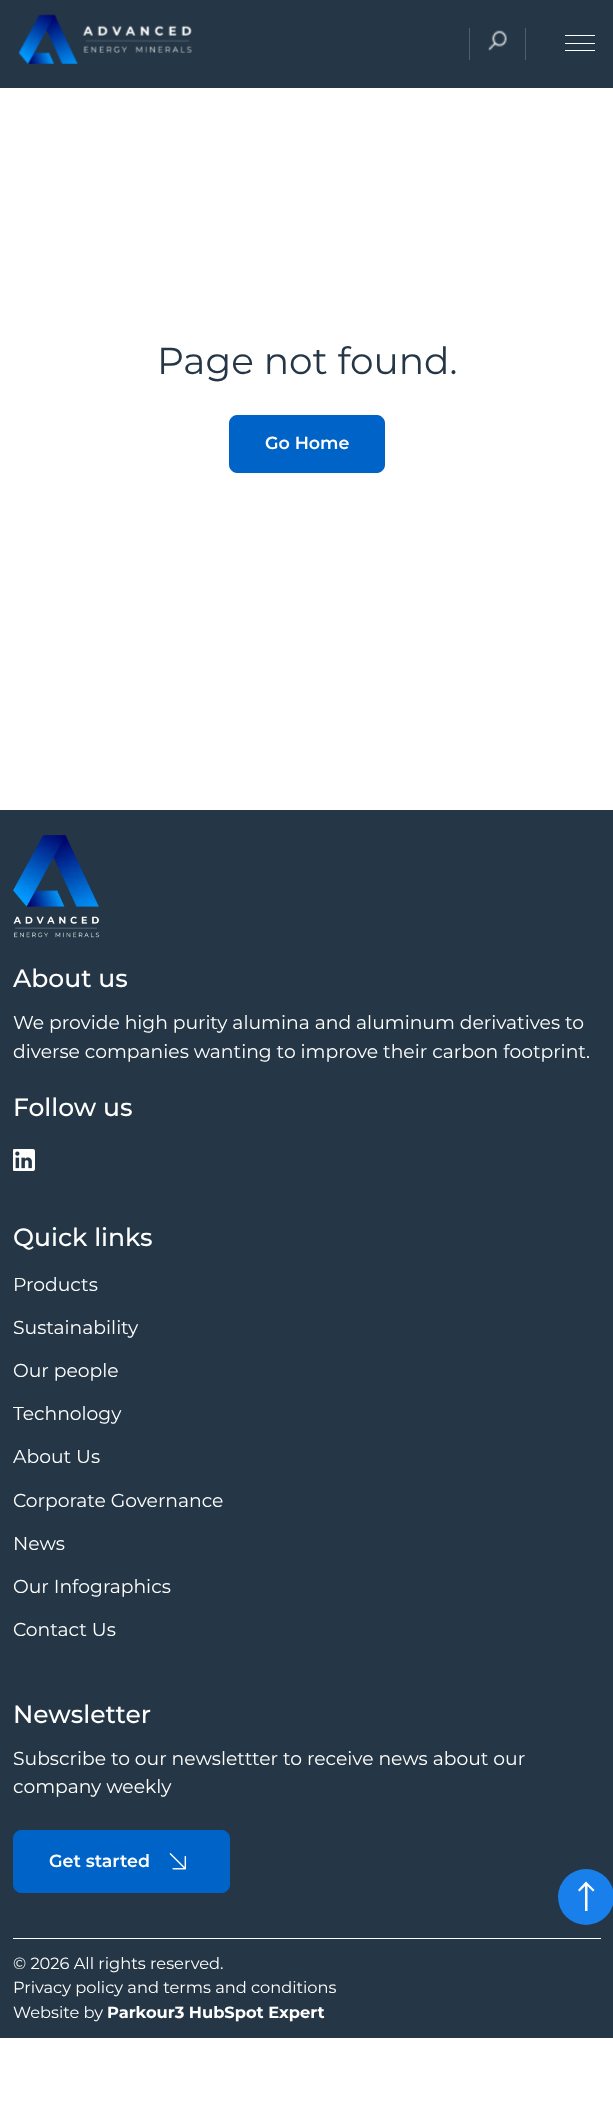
<!DOCTYPE html>
<meta charset="utf-8">
<style>body { margin: 0 } canvas { display: block }</style>
<canvas id="canvas" width="613" height="2124"></canvas>
<img id="img1" src="img_01.png" hidden>
<img id="img2" src="img_02.png" hidden>
<img id="img3" src="img_03.png" hidden>
<img id="img4" src="img_04.png" hidden>
<img id="img5" src="img_05.png" hidden>
<script>
window.onload = function () {
	const canvas = document.getElementById("canvas");
	const ctx = canvas.getContext("2d");
	ctx.miterLimit = 4;
	ctx.fontKerning = "normal";
	function txt(s, x, y) {
		ctx.fillText(s, x, y);
	}
	function fill(x, y, w, h) {
		ctx.fillRect(x, y, w, h);
	}
	function img(id, x, y, w, h) {
		ctx.drawImage(document.getElementById(id), x, y, w, h);
	}

	ctx.fillStyle = "#FFFFFF";
	fill(0, 0, 613, 2124);
	ctx.fillStyle = "#253746";
	fill(0, 0, 613, 88);
	img("img1", 18, 14, 174, 50);
	ctx.fillStyle = "#515F6B";
	fill(525, 28, 1, 32);
	fill(469, 28, 1, 32);
	img("img2", 488, 30, 19, 21);
	ctx.fillStyle = "#FFFFFF";
	fill(565, 35, 30, 1);
	fill(565, 43, 30, 1);
	fill(565, 50, 30, 1);
	ctx.fillStyle = "#0063C7";
	ctx.beginPath();
	ctx.roundRect(229.5, 415.5, 155, 57, 7.5);
	ctx.fill();
	ctx.strokeStyle = "#0063C7";
	ctx.stroke();
	ctx.fillStyle = "#253746";
	fill(0, 810, 613, 1228);
	img("img3", 13, 835, 87, 103);
	img("img4", 13, 1149, 22, 22);
	ctx.fillStyle = "#0063C7";
	ctx.beginPath();
	ctx.roundRect(13.5, 1830.5, 216, 62, 7.5);
	ctx.fill();
	ctx.stroke();
	img("img5", 169, 1853, 18, 17);
	ctx.fillStyle = "#FFFFFF";
	fill(13, 1938, 588, 1);
	ctx.fillStyle = "#1980EB";
	ctx.beginPath();
	ctx.arc(586, 1897, 28, 0, Math.PI * 2);
	ctx.fill();
	ctx.fillStyle = "#FFFFFF";
	ctx.beginPath();
	ctx.moveTo(578, 1890);
	ctx.lineTo(579.5, 1891.5);
	ctx.lineTo(585, 1886);
	ctx.lineTo(585, 1911);
	ctx.lineTo(587.5, 1911);
	ctx.lineTo(587.5, 1886);
	ctx.lineTo(593, 1891.5);
	ctx.lineTo(594.5, 1890);
	ctx.lineTo(586, 1881.5);
	ctx.closePath();
	ctx.fill();
	ctx.font = "37.5px Montserrat";
	ctx.fillStyle = "#253746";
	txt("Page not found.", 157, 374);
	ctx.font = "600 17.5px Montserrat";
	ctx.fillStyle = "#FFFFFF";
	txt("Go Home", 265, 449);
	ctx.font = "500 25px Montserrat";
	txt("About us", 13, 987);
	ctx.font = "18.75px Montserrat";
	txt("We provide high purity alumina and aluminum derivatives to", 13, 1029);
	txt("diverse companies wanting to improve their carbon footprint.", 13, 1058);
	ctx.font = "500 25px Montserrat";
	txt("Follow us", 13, 1116);
	txt("Quick links", 13, 1246);
	ctx.font = "18.75px Montserrat";
	txt("Products", 13, 1291);
	txt("Sustainability", 13, 1334);
	txt("Our people", 13, 1377);
	txt("Technology", 13, 1420);
	txt("About Us", 13, 1463);
	txt("Corporate Governance", 13, 1507);
	txt("News", 13, 1550);
	txt("Our Infographics", 13, 1593);
	txt("Contact Us", 13, 1636);
	ctx.font = "500 25px Montserrat";
	txt("Newsletter", 13, 1723);
	ctx.font = "18.75px Montserrat";
	txt("Subscribe to our newslettter to receive news about our", 13, 1765);
	txt("company weekly", 13, 1793);
	ctx.font = "600 17.5px Montserrat";
	txt("Get started", 49, 1867);
	ctx.font = "16.25px Montserrat";
	txt("© 2026 All rights reserved.", 13, 1969);
	txt("Privacy policy and terms and conditions", 13, 1993);
	txt("Website by", 13, 2018);
	ctx.font = "bold 16.25px Montserrat";
	txt("Parkour3 HubSpot Expert", 107, 2018);
};
</script>
